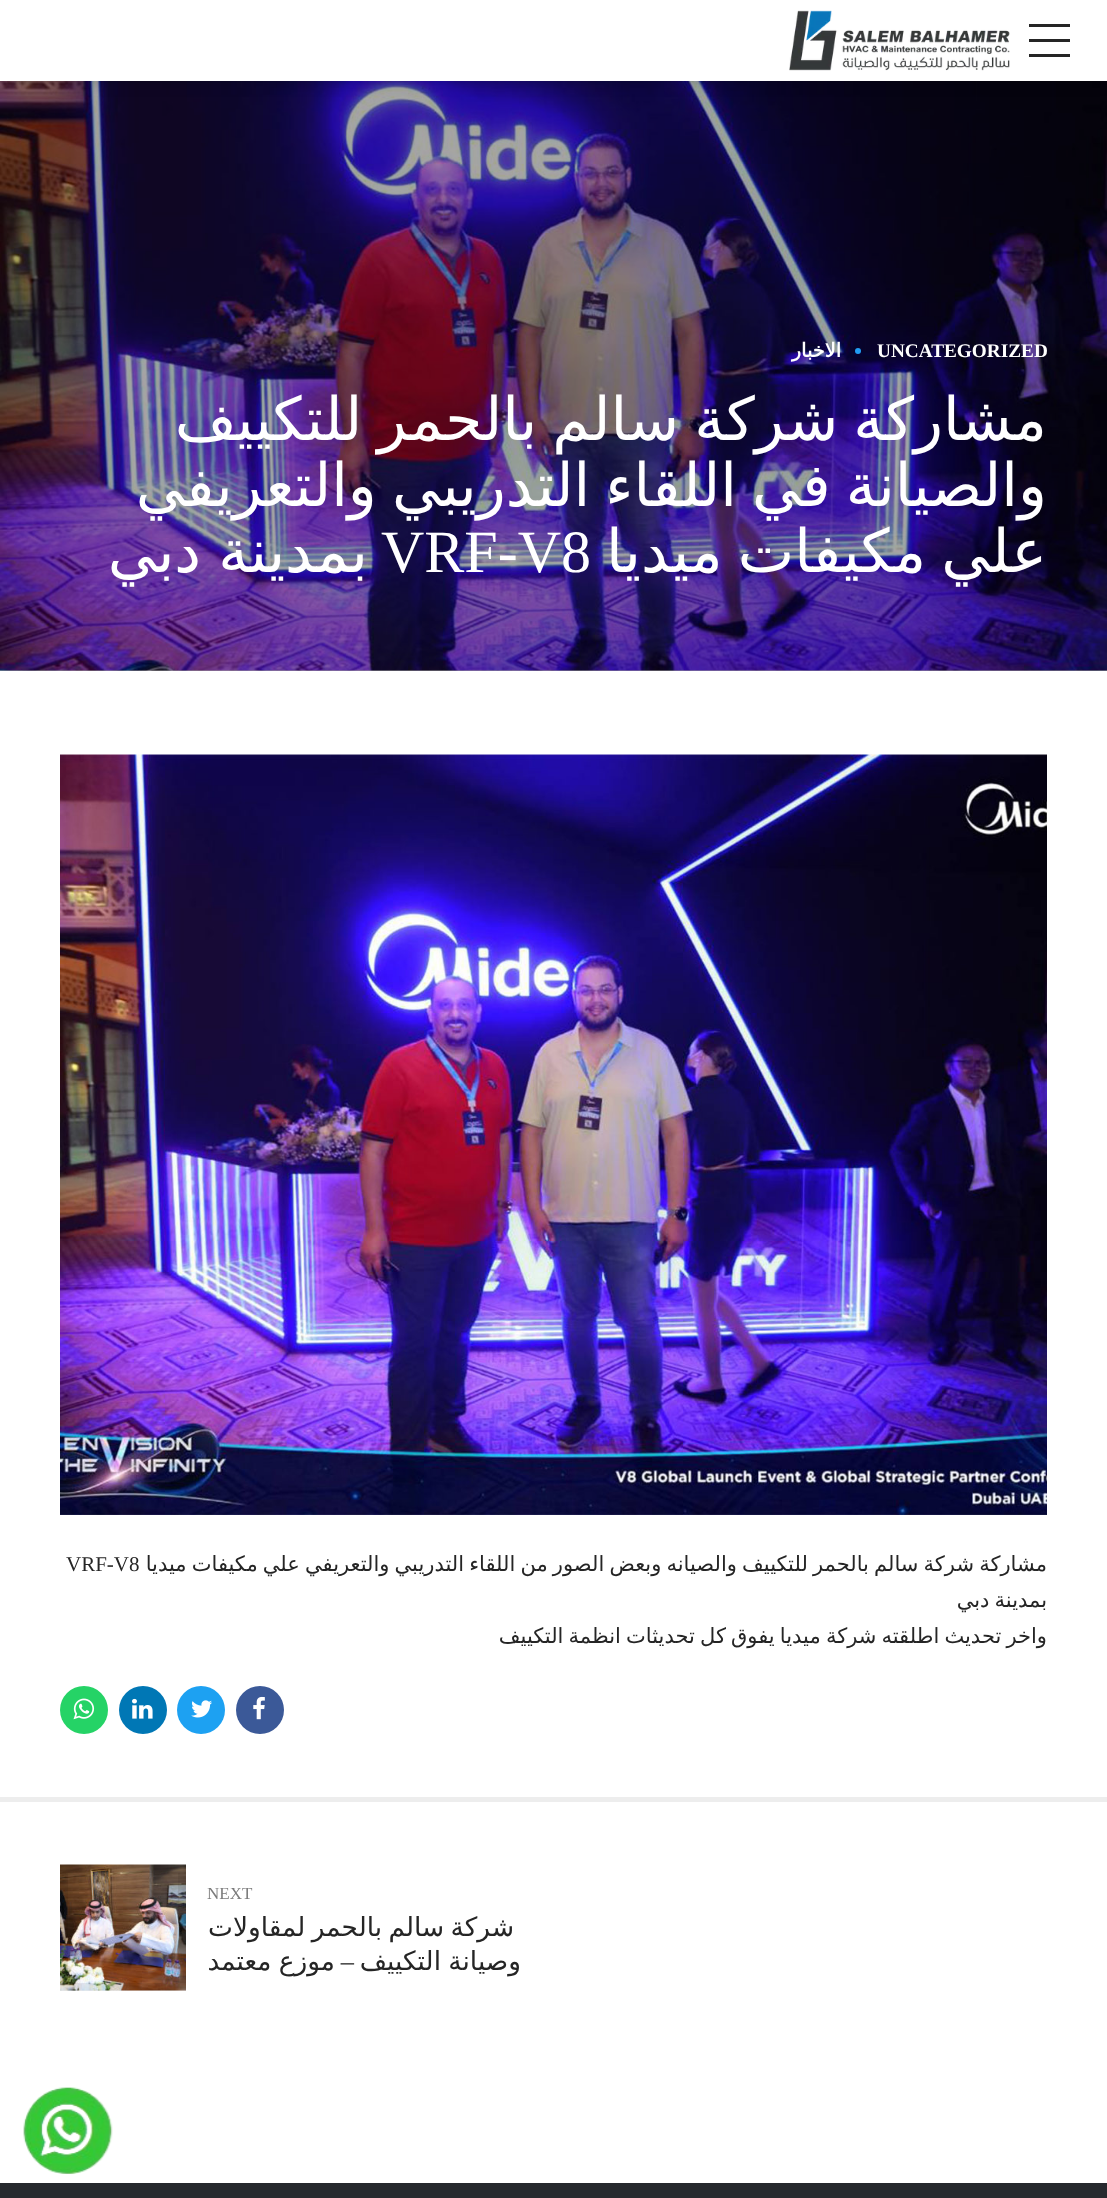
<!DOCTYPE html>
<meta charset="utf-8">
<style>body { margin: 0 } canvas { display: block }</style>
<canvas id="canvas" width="1107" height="2198"></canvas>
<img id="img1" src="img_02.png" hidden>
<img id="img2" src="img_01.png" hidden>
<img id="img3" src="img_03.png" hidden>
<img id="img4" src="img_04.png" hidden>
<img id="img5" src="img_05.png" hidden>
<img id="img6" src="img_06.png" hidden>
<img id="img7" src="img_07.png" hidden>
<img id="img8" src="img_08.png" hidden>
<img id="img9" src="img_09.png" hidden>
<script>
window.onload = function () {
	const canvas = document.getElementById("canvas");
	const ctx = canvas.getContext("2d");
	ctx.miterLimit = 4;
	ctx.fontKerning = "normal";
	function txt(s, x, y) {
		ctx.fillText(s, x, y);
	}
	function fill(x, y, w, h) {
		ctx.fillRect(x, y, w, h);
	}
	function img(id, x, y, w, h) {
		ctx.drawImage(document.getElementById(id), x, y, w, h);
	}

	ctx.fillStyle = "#FFFFFF";
	fill(0, 0, 1107, 2198);
	ctx.fillStyle = "#9B9B9B";
	fill(0, 670, 1107, 1);
	img("img1", 0, 81, 1107, 590);
	ctx.fillStyle = "rgba(0, 0, 0, 0.2)";
	ctx.filter = "blur(7.5px)";
	ctx.beginPath();
	ctx.rect(0, 0, 1107, 81);
	ctx.fill();
	ctx.filter = "none";
	ctx.fillStyle = "#FFFFFF";
	fill(0, 0, 1107, 81);
	ctx.fillStyle = "#252525";
	fill(1029, 24, 41, 3);
	fill(1029, 39, 41, 3);
	fill(1029, 54, 41, 3);
	img("img2", 789, 10, 221, 61);
	ctx.fillStyle = "#219DF3";
	ctx.beginPath();
	ctx.arc(858, 351, 3, 0, Math.PI * 2);
	ctx.fill();
	img("img3", 60, 754, 987, 761);
	ctx.fillStyle = "#3B5998";
	ctx.beginPath();
	ctx.arc(260, 1710, 24, 0, Math.PI * 2);
	ctx.fill();
	img("img4", 253, 1696, 12, 24);
	ctx.fillStyle = "#1DA1F2";
	ctx.beginPath();
	ctx.arc(201, 1710, 24, 0, Math.PI * 2);
	ctx.fill();
	img("img5", 191, 1700, 21, 18);
	ctx.fillStyle = "#0077B5";
	ctx.beginPath();
	ctx.arc(143, 1710, 24, 0, Math.PI * 2);
	ctx.fill();
	img("img6", 132, 1698, 21, 21);
	ctx.fillStyle = "#25D366";
	ctx.beginPath();
	ctx.arc(84, 1710, 24, 0, Math.PI * 2);
	ctx.fill();
	img("img7", 73, 1698, 22, 22);
	ctx.fillStyle = "#EDEDED";
	fill(0, 1797, 1107, 5);
	img("img8", 60, 1864, 126, 127);
	ctx.strokeStyle = "rgba(0, 0, 0, 0.07)";
	ctx.lineWidth = 8;
	ctx.strokeRect(64, 1869, 118, 118);
	ctx.fillStyle = "#26292E";
	fill(0, 2183, 1107, 15);
	img("img9", 23, 2087, 90, 88);
	ctx.font = "bold 19.25px Liberation Serif";
	ctx.fillStyle = "#FFFFFF";
	txt("UNCATEGORIZED", 877, 357);
	ctx.direction = "rtl";
	ctx.font = "bold 19.25px DejaVu Sans";
	txt("الاخبار", 841, 357);
	ctx.wordSpacing = "-4px";
	ctx.font = "60px DejaVu Sans";
	txt("مشاركة شركة سالم بالحمر للتكييف", 1047, 440);
	txt("والصيانة في اللقاء التدريبي والتعريفي", 1047, 506);
	txt("علي مكيفات ميديا", 1047, 572);
	ctx.wordSpacing = "0px";
	ctx.direction = "ltr";
	ctx.font = "60px Liberation Serif";
	txt("VRF-V8", 381, 572);
	ctx.wordSpacing = "-2px";
	ctx.direction = "rtl";
	ctx.font = "60px DejaVu Sans";
	txt("بمدينة دبي", 368, 572);
	ctx.wordSpacing = "-1.5px";
	ctx.font = "21px DejaVu Sans";
	ctx.fillStyle = "#252525";
	txt("مشاركة شركة سالم بالحمر للتكييف والصيانه وبعض الصور من اللقاء التدريبي والتعريفي علي مكيفات ميديا", 1047, 1571);
	ctx.wordSpacing = "0px";
	ctx.direction = "ltr";
	ctx.font = "21px Liberation Serif";
	txt("VRF-V8", 66, 1571);
	ctx.wordSpacing = "-1.5px";
	ctx.direction = "rtl";
	ctx.font = "21px DejaVu Sans";
	txt("بمدينة دبي", 1047, 1607);
	txt("واخر تحديث اطلقته شركة ميديا يفوق كل تحديثات انظمة التكييف", 1047, 1643);
	ctx.wordSpacing = "0px";
	ctx.direction = "ltr";
	ctx.font = "17px Liberation Serif";
	ctx.fillStyle = "#7C7C7C";
	txt("NEXT", 207, 1899);
	ctx.wordSpacing = "-2px";
	ctx.direction = "rtl";
	ctx.font = "26.4px DejaVu Sans";
	ctx.fillStyle = "#252525";
	txt("شركة سالم بالحمر لمقاولات", 514, 1936);
	ctx.wordSpacing = "-1px";
	txt("وصيانة التكييف", 521, 1970);
	ctx.wordSpacing = "0px";
	ctx.font = "26.4px Liberation Serif";
	txt("–", 354, 1970);
	ctx.wordSpacing = "-1px";
	ctx.font = "26.4px DejaVu Sans";
	txt("موزع معتمد", 335, 1970);
};
</script>
